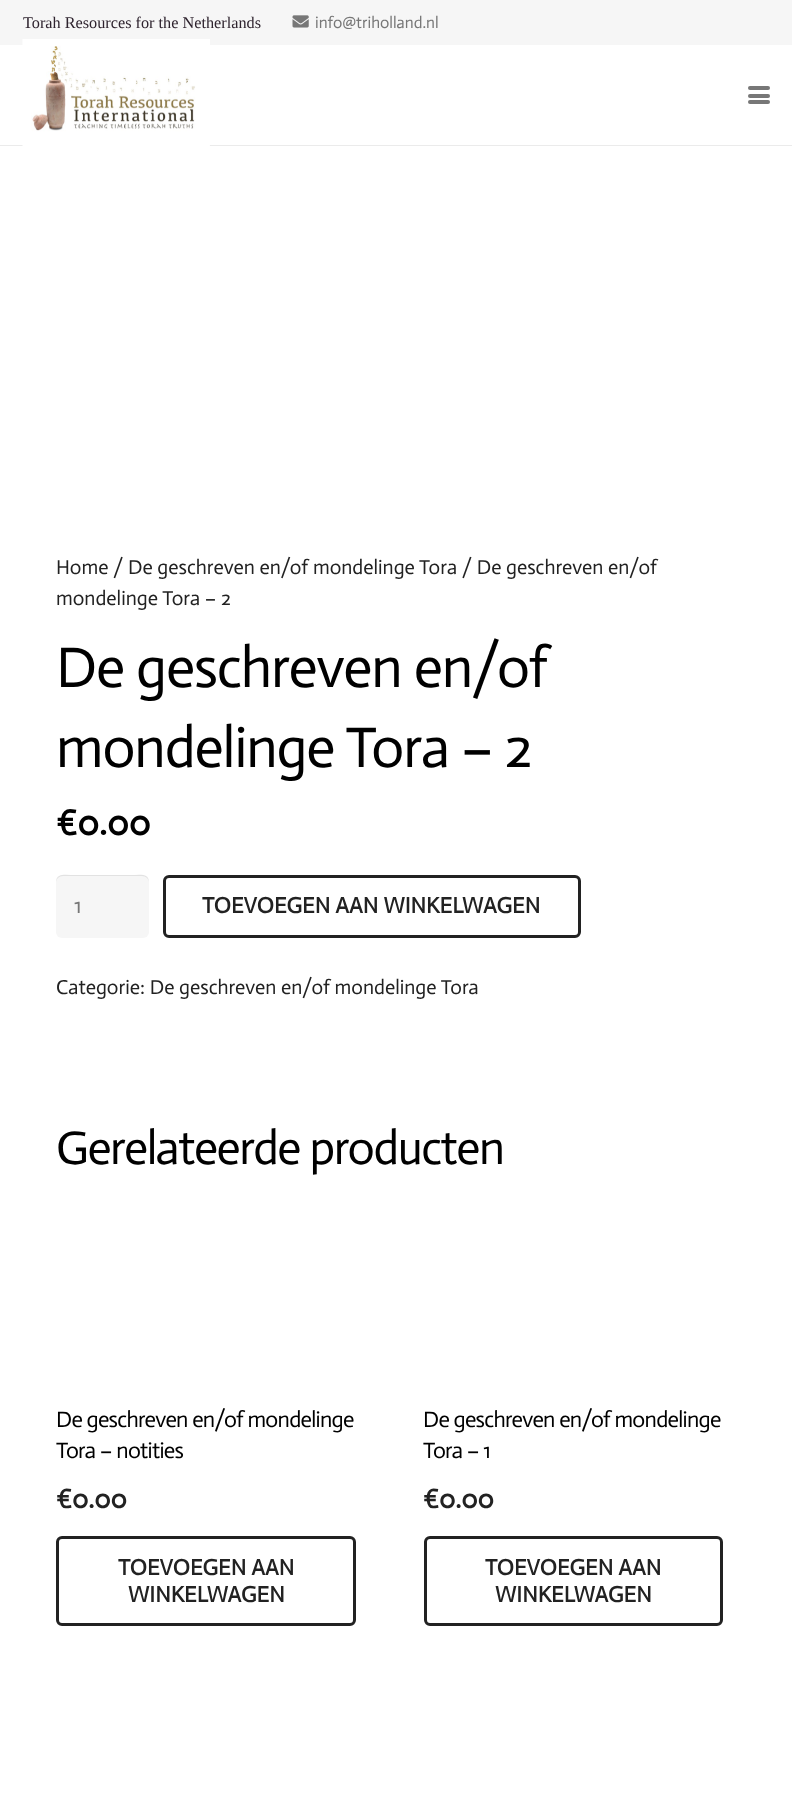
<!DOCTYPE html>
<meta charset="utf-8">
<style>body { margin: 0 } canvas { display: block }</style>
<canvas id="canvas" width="792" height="1813"></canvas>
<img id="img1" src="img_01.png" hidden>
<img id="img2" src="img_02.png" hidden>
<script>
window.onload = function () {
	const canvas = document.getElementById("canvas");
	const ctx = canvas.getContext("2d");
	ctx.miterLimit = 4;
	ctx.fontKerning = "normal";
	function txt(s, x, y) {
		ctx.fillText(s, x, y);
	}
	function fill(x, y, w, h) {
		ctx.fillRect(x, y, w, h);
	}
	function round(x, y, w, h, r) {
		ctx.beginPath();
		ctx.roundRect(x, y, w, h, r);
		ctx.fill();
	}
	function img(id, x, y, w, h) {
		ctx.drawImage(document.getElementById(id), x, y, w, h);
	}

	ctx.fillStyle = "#FFFFFF";
	fill(0, 0, 792, 1813);
	ctx.fillStyle = "#F6F6F6";
	fill(0, 0, 792, 45);
	img("img1", 292, 15, 17, 13);
	ctx.fillStyle = "#EBEBEB";
	ctx.beginPath();
	ctx.moveTo(0, 145);
	ctx.lineTo(0, 146);
	ctx.lineTo(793, 146);
	ctx.lineTo(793, 46);
	ctx.lineTo(792, 46);
	ctx.lineTo(792, 145);
	ctx.closePath();
	ctx.fill();
	img("img2", 22, 39, 188, 107);
	ctx.fillStyle = "#777777";
	round(748, 94, 22, 4, 2);
	round(748, 86, 22, 4, 2);
	round(748, 100, 22, 4, 2);
	ctx.fillStyle = "#F6F6F6";
	round(56, 875, 93, 63, 6);
	ctx.fillStyle = "#E2E2E2";
	ctx.beginPath();
	ctx.moveTo(63, 876);
	ctx.lineTo(142, 876);
	ctx.bezierCurveTo(146, 876, 149, 879, 149, 883);
	ctx.bezierCurveTo(149, 872, 139, 875, 130, 875);
	ctx.lineTo(76, 875);
	ctx.bezierCurveTo(66, 875, 56, 872, 56, 883);
	ctx.bezierCurveTo(56, 879, 59, 876, 63, 876);
	ctx.closePath();
	ctx.fill();
	ctx.beginPath();
	ctx.roundRect(164.5, 876.5, 415, 60, 4.5);
	ctx.strokeStyle = "#222222";
	ctx.lineWidth = 3;
	ctx.stroke();
	ctx.beginPath();
	ctx.roundRect(57.5, 1537.5, 297, 87, 4.5);
	ctx.stroke();
	ctx.beginPath();
	ctx.roundRect(425.5, 1537.5, 296, 87, 4.5);
	ctx.stroke();
	ctx.font = "16.25px Liberation Serif";
	ctx.fillStyle = "#2E232E";
	txt("Torah Resources for the Netherlands", 23, 28);
	ctx.font = "16.25px Actor";
	ctx.fillStyle = "#777777";
	txt("info@triholland.nl", 315, 28);
	ctx.font = "20.25px Actor";
	ctx.fillStyle = "#222222";
	txt("Home / De geschreven en/of mondelinge Tora / De geschreven en/of", 56, 574);
	txt("mondelinge Tora – 2", 56, 605);
	ctx.letterSpacing = "-1.1px";
	ctx.font = "57.5px Actor";
	ctx.fillStyle = "#000000";
	txt("De geschreven en/of", 56, 687);
	txt("mondelinge Tora – 2", 56, 767);
	ctx.letterSpacing = "0px";
	ctx.font = "bold 36px Actor";
	txt("€0.00", 56, 835);
	ctx.font = "22.5px Actor";
	ctx.fillStyle = "#777777";
	txt("1", 74, 913);
	ctx.font = "bold 22.5px Actor";
	ctx.fillStyle = "#222222";
	txt("TOEVOEGEN AAN WINKELWAGEN", 202, 913);
	ctx.font = "20.25px Actor";
	txt("Categorie: De geschreven en/of mondelinge Tora", 56, 994);
	ctx.letterSpacing = "-1.4px";
	ctx.font = "47.5px Actor";
	ctx.fillStyle = "#000000";
	txt("Gerelateerde producten", 56, 1164);
	ctx.letterSpacing = "-0.7px";
	ctx.font = "22.5px Actor";
	txt("De geschreven en/of mondelinge", 56, 1427);
	txt("Tora – notities", 56, 1458);
	ctx.letterSpacing = "0px";
	ctx.font = "bold 27px Actor";
	ctx.fillStyle = "#222222";
	txt("€0.00", 56, 1508);
	ctx.font = "bold 22.5px Actor";
	txt("TOEVOEGEN AAN", 118, 1575);
	txt("WINKELWAGEN", 128, 1602);
	ctx.letterSpacing = "-0.7px";
	ctx.font = "22.5px Actor";
	ctx.fillStyle = "#000000";
	txt("De geschreven en/of mondelinge", 423, 1427);
	txt("Tora – 1", 423, 1458);
	ctx.letterSpacing = "0px";
	ctx.font = "bold 27px Actor";
	ctx.fillStyle = "#222222";
	txt("€0.00", 423, 1508);
	ctx.font = "bold 22.5px Actor";
	txt("TOEVOEGEN AAN", 485, 1575);
	txt("WINKELWAGEN", 495, 1602);
};
</script>
